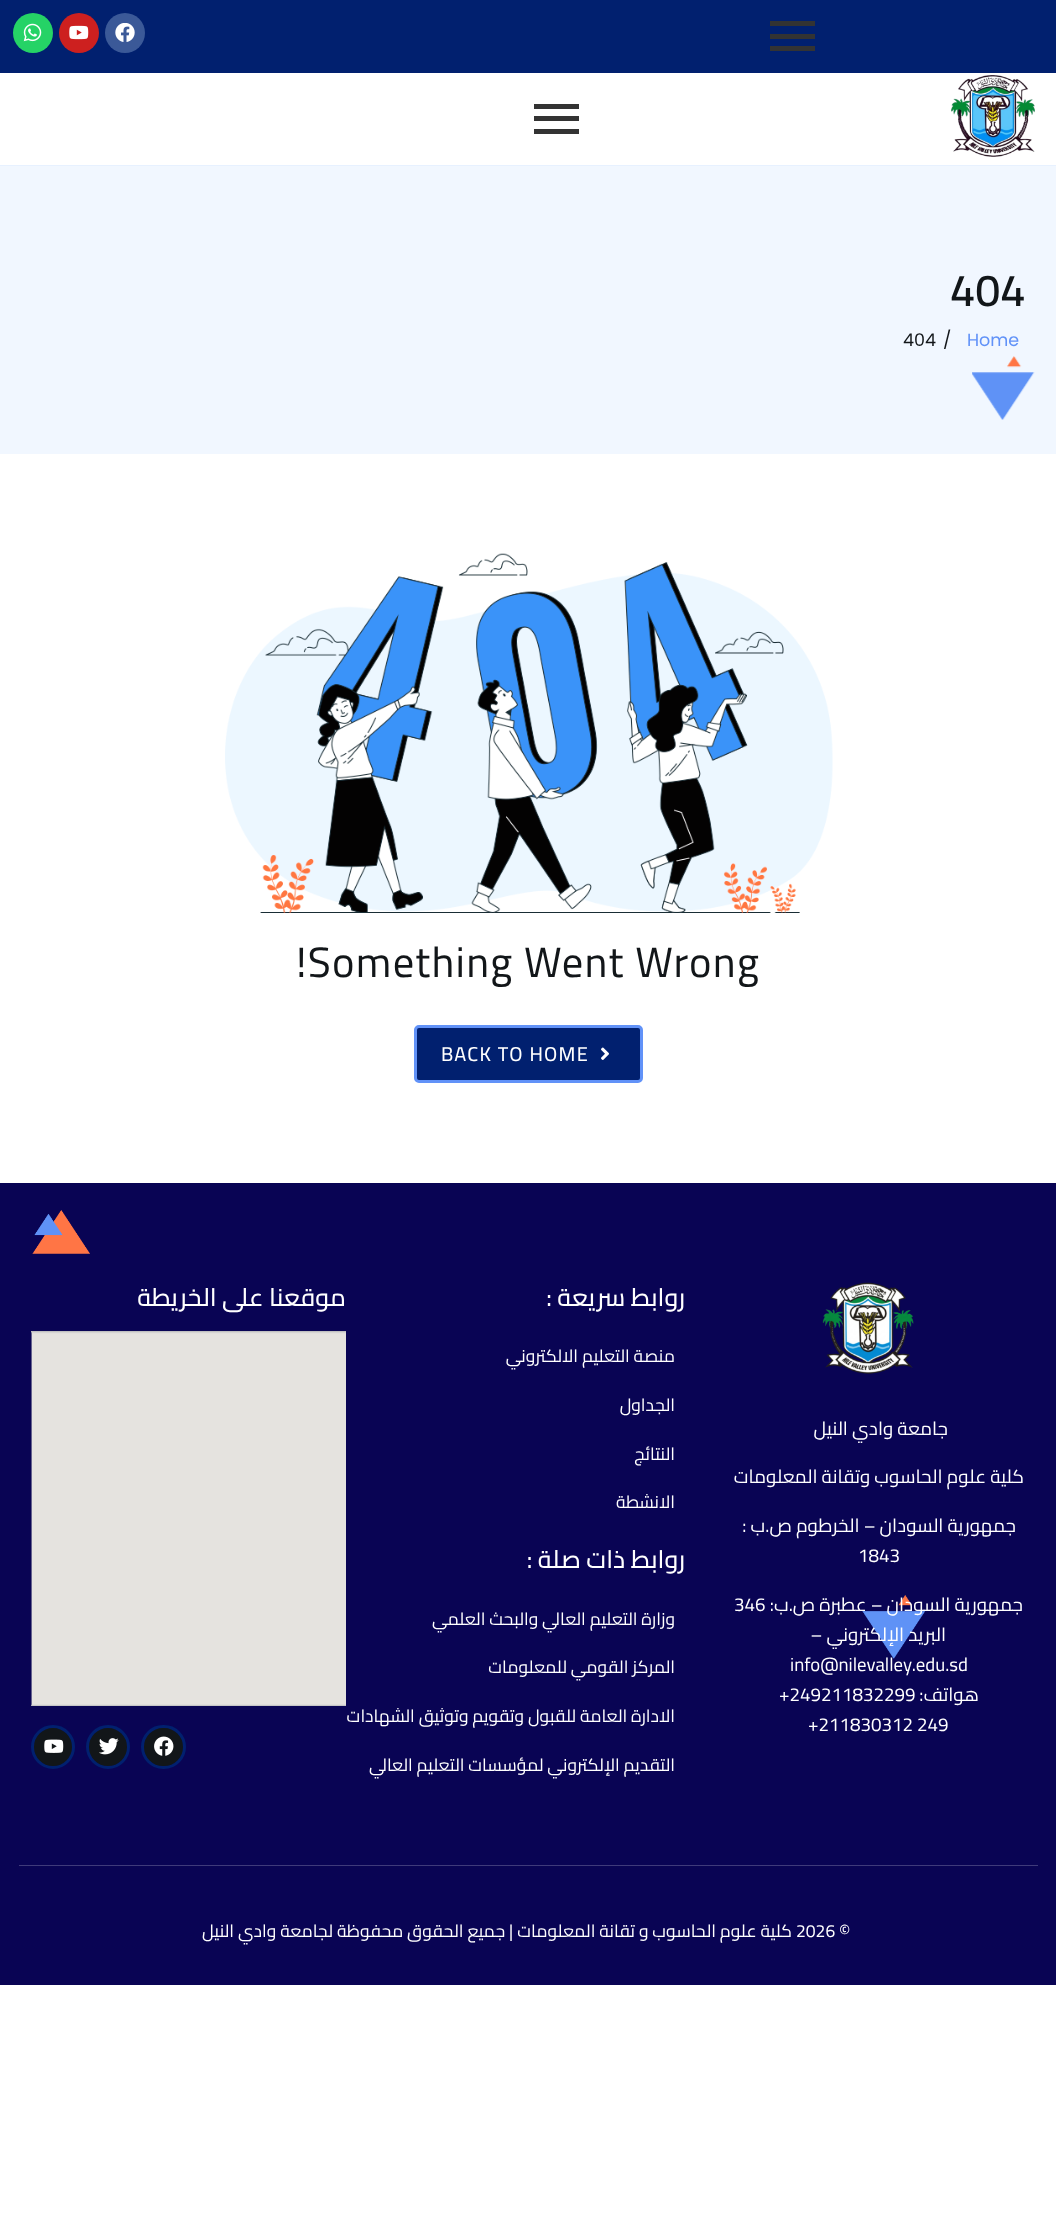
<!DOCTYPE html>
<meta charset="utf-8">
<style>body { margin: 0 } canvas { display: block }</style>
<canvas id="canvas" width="1056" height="2234"></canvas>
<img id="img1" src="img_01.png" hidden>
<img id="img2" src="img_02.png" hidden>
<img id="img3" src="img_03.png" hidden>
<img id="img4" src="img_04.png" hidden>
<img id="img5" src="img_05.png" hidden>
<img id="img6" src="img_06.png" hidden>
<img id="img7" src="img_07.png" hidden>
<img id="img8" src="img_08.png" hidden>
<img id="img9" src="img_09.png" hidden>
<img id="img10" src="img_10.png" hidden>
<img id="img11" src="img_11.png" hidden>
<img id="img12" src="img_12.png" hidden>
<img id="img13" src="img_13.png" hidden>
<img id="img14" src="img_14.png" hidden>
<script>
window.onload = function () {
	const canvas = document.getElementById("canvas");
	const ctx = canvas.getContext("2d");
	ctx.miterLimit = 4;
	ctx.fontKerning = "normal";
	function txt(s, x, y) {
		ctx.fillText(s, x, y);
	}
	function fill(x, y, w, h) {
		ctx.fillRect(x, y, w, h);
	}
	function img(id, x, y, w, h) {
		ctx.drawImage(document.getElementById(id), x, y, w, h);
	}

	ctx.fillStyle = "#FFFFFF";
	fill(0, 0, 1056, 2234);
	ctx.fillStyle = "#01206F";
	fill(0, 0, 1056, 73);
	ctx.fillStyle = "#333333";
	fill(770, 21, 45, 5);
	fill(770, 34, 45, 5);
	fill(770, 46, 45, 5);
	ctx.fillStyle = "#3B5998";
	ctx.beginPath();
	ctx.arc(125, 33, 20, 0, Math.PI * 2);
	ctx.fill();
	img("img1", 115, 23, 20, 19);
	ctx.fillStyle = "#CD201F";
	ctx.beginPath();
	ctx.arc(79, 33, 20, 0, Math.PI * 2);
	ctx.fill();
	img("img2", 69, 25, 20, 15);
	ctx.fillStyle = "#25D366";
	ctx.beginPath();
	ctx.arc(33, 33, 20, 0, Math.PI * 2);
	ctx.fill();
	img("img3", 23, 23, 19, 19);
	ctx.fillStyle = "#E7F1FF";
	fill(0, 165, 1056, 1);
	img("img4", 951, 75, 84, 82);
	ctx.fillStyle = "#333333";
	fill(534, 104, 45, 5);
	fill(534, 116, 45, 5);
	fill(534, 129, 45, 5);
	ctx.fillStyle = "#F1F7FF";
	fill(0, 166, 1056, 288);
	img("img5", 972, 356, 63, 64);
	img("img6", 225, 553, 608, 360);
	ctx.fillStyle = "#01206F";
	ctx.beginPath();
	ctx.roundRect(415.5, 1026.5, 226, 55, 3.5);
	ctx.fill();
	ctx.strokeStyle = "#6192F8";
	ctx.lineWidth = 3;
	ctx.stroke();
	img("img7", 601, 1047, 8, 13);
	ctx.fillStyle = "#090454";
	fill(0, 1183, 1056, 802);
	img("img8", 32, 1210, 58, 44);
	img("img9", 822, 1282, 92, 92);
	img("img10", 31, 1331, 315, 375);
	ctx.fillStyle = "#121619";
	ctx.beginPath();
	ctx.roundRect(142.5, 1726.5, 42, 41, 20.5);
	ctx.fill();
	ctx.strokeStyle = "#01206F";
	ctx.stroke();
	img("img11", 154, 1736, 20, 20);
	ctx.beginPath();
	ctx.arc(108, 1747, 20.5, 0, Math.PI * 2);
	ctx.fill();
	ctx.stroke();
	img("img12", 99, 1738, 20, 17);
	ctx.beginPath();
	ctx.arc(53, 1747, 20.5, 0, Math.PI * 2);
	ctx.fill();
	ctx.stroke();
	img("img13", 44, 1739, 20, 14);
	ctx.fillStyle = "#3F3B7A";
	fill(19, 1865, 1019, 1);
	img("img14", 862, 1595, 63, 64);
	ctx.font = "600 45px Cairo";
	ctx.fillStyle = "#121619";
	txt("404", 950, 306);
	ctx.font = "17.5px Poppins";
	ctx.fillStyle = "#6192F8";
	txt("Home", 967, 346);
	ctx.fillStyle = "#121619";
	txt("/", 943, 346);
	txt("404", 903, 346);
	ctx.letterSpacing = "1.25px";
	ctx.font = "42.5px Cairo";
	txt("!Something Went Wrong", 296, 977);
	ctx.font = "500 20px Cairo";
	ctx.fillStyle = "#FFFFFF";
	txt("BACK TO HOME", 441, 1061);
	ctx.letterSpacing = "0px";
	ctx.direction = "rtl";
	ctx.font = "18.75px Cairo";
	txt("جامعة وادي النيل", 948, 1435);
	txt("كلية علوم الحاسوب وتقانة المعلومات", 1024, 1483);
	txt("جمهورية السودان – الخرطوم ص.ب :", 1016, 1532);
	ctx.direction = "ltr";
	txt("1843", 858, 1562);
	ctx.direction = "rtl";
	txt("جمهورية السودان – عطبرة ص.ب:", 1023, 1611);
	ctx.direction = "ltr";
	txt("346", 734, 1611);
	ctx.direction = "rtl";
	txt("البريد الإلكتروني –", 946, 1641);
	ctx.direction = "ltr";
	txt("info@nilevalley.edu.sd", 790, 1671);
	ctx.direction = "rtl";
	txt("هواتف:", 979, 1701);
	ctx.direction = "ltr";
	txt("+249211832299", 779, 1701);
	txt("+211830312 249", 808, 1731);
	ctx.direction = "rtl";
	ctx.font = "500 25px Cairo";
	txt("روابط سريعة :", 685, 1306);
	ctx.font = "17.5px Cairo";
	txt("منصة التعليم الالكتروني", 675, 1362);
	txt("الجداول", 675, 1411);
	txt("النتائج", 675, 1460);
	txt("الانشطة", 675, 1508);
	ctx.font = "500 25px Cairo";
	txt("روابط ذات صلة :", 685, 1568);
	ctx.font = "17.5px Cairo";
	txt("وزارة التعليم العالي والبحث العلمي", 675, 1625);
	txt("المركز القومي للمعلومات", 675, 1673);
	txt("الادارة العامة للقبول وتقويم وتوثيق الشهادات", 675, 1722);
	txt("التقديم الإلكتروني لمؤسسات التعليم العالي", 675, 1771);
	ctx.font = "500 25px Cairo";
	txt("موقعنا على الخريطة", 346, 1306);
	ctx.direction = "ltr";
	ctx.font = "17.5px Cairo";
	txt("2026 ©", 796, 1937);
	ctx.direction = "rtl";
	txt("كلية علوم الحاسوب و تقانة المعلومات", 792, 1937);
	txt("| جميع الحقوق محفوظة لجامعة وادي النيل", 513, 1937);
};
</script>
